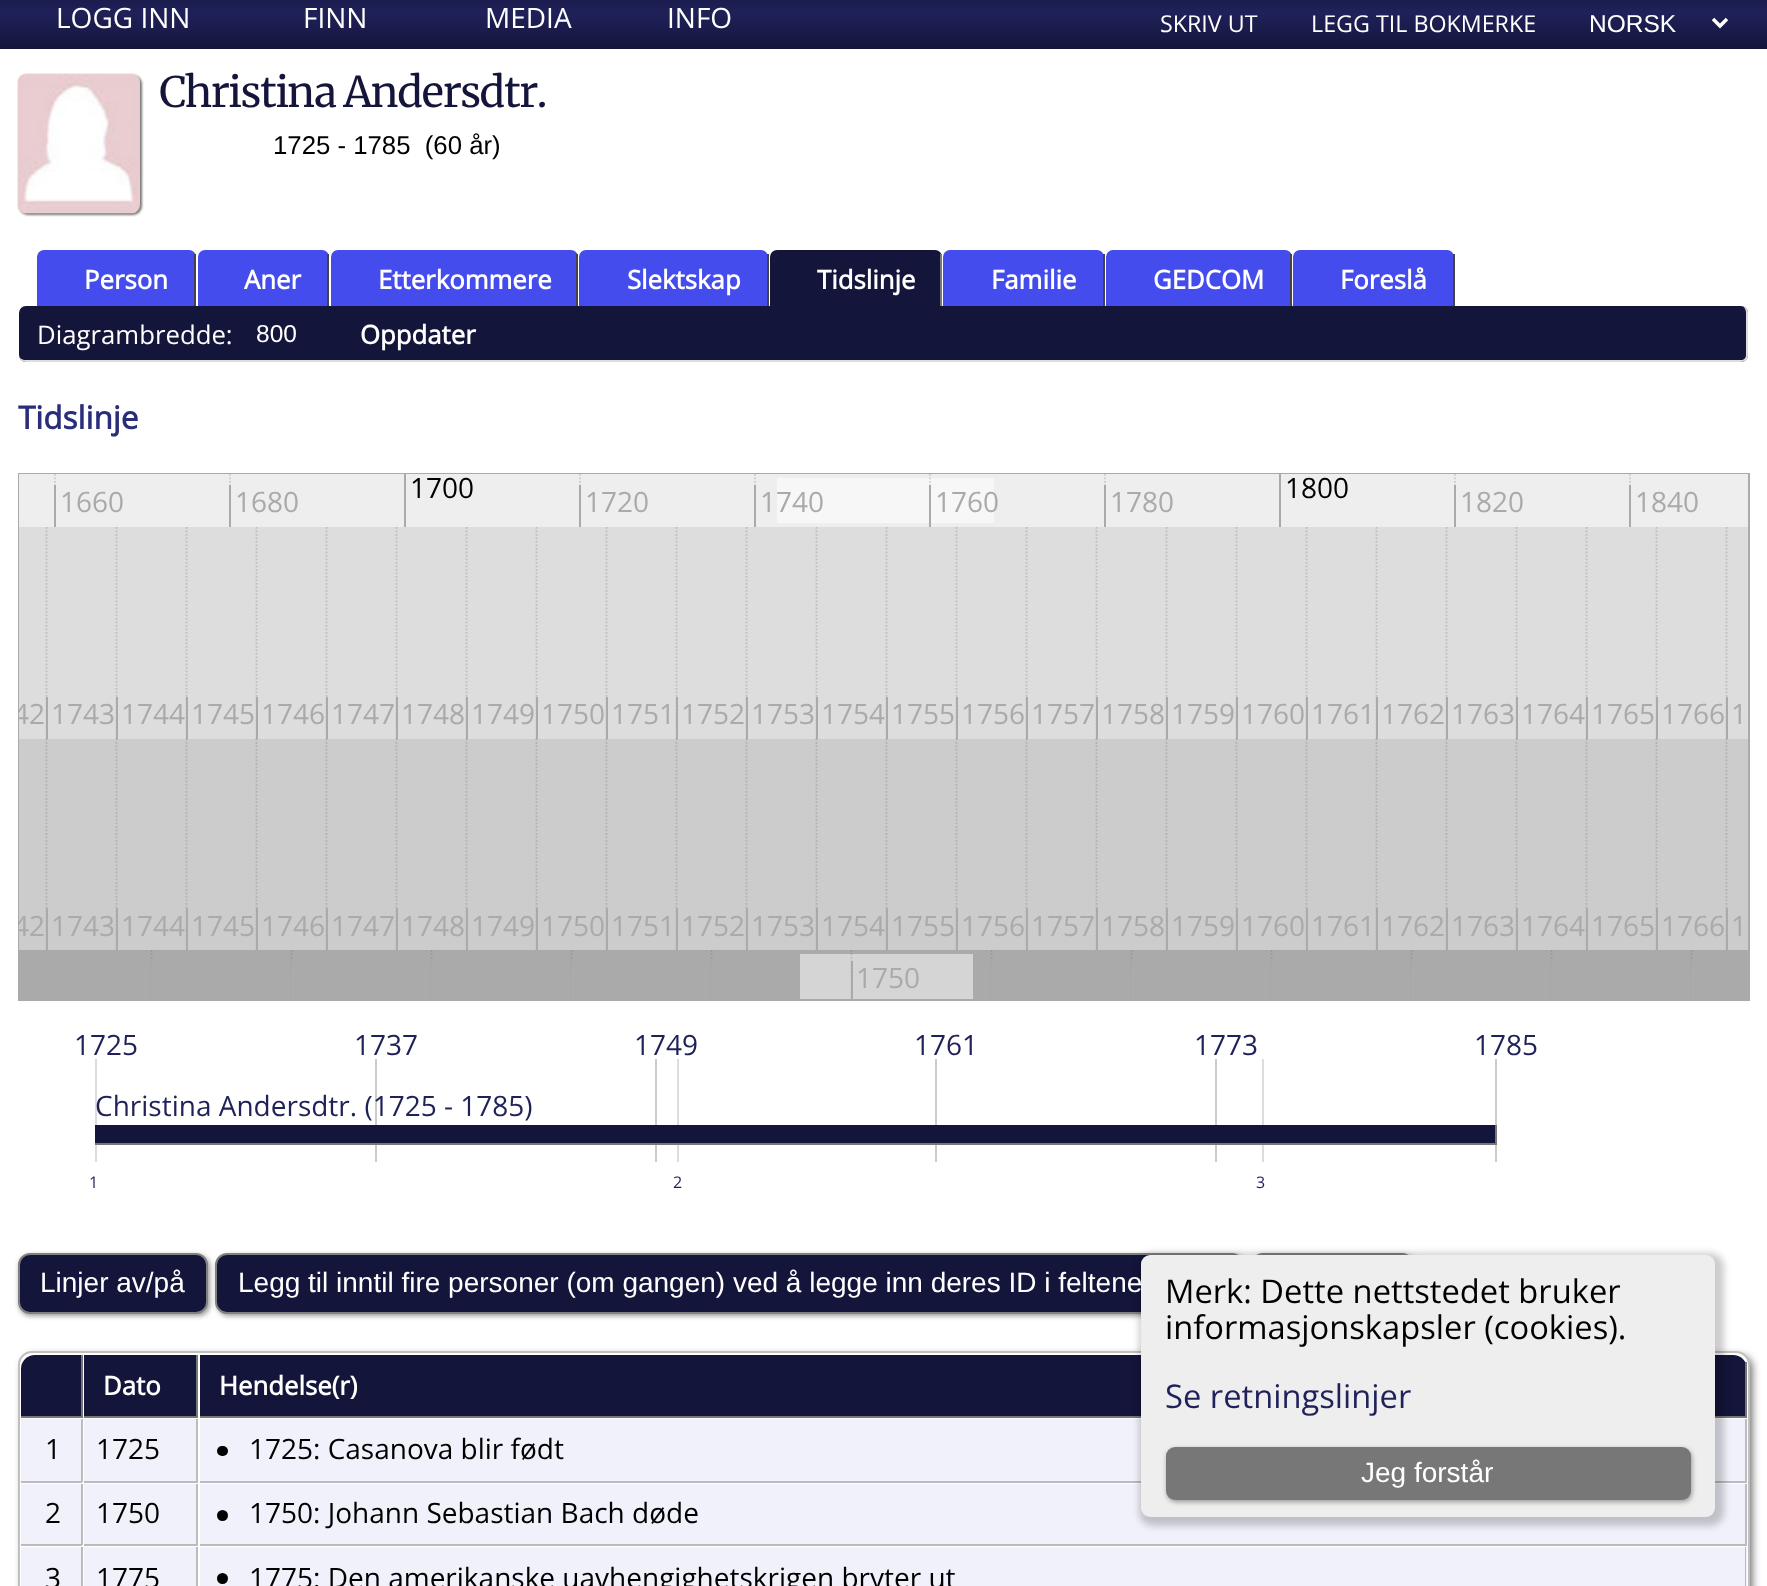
<!DOCTYPE html>
<meta charset="utf-8">
<style>body { margin: 0 } canvas { display: block }</style>
<canvas id="canvas" width="1767" height="1586"></canvas>
<img id="img1" src="img_01.png" hidden>
<script>
window.onload = function () {
	const canvas = document.getElementById("canvas");
	const ctx = canvas.getContext("2d");
	ctx.miterLimit = 4;
	ctx.fontKerning = "normal";
	function txt(s, x, y) {
		ctx.fillText(s, x, y);
	}
	function fill(x, y, w, h) {
		ctx.fillRect(x, y, w, h);
	}
	function round(x, y, w, h, r) {
		ctx.beginPath();
		ctx.roundRect(x, y, w, h, r);
		ctx.fill();
	}
	function img(id, x, y, w, h) {
		ctx.drawImage(document.getElementById(id), x, y, w, h);
	}
	let gradient;

	ctx.fillStyle = "#FFFFFF";
	fill(0, 0, 1767, 1586);
	gradient = ctx.createLinearGradient(884, -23, 884, 49);
	gradient.addColorStop(0, "#14153A");
	gradient.addColorStop(0.5, "#1F2159");
	gradient.addColorStop(1, "#14153A");
	ctx.fillStyle = gradient;
	fill(0, 0, 1767, 49);
	ctx.beginPath();
	ctx.moveTo(1713, 19);
	ctx.lineTo(1720, 26);
	ctx.lineTo(1727, 19);
	ctx.strokeStyle = "#FFFFFF";
	ctx.lineWidth = 3.5;
	ctx.stroke();
	ctx.fillStyle = "#777777";
	ctx.filter = "blur(1px)";
	ctx.beginPath();
	ctx.roundRect(19, 75, 123, 140, 9);
	ctx.fill();
	ctx.filter = "none";
	img("img1", 17, 73, 123, 141);
	ctx.fillStyle = "#444CED";
	ctx.beginPath();
	ctx.roundRect(37, 250, 159, 56, [7, 7, 0, 0]);
	ctx.fill();
	ctx.fillStyle = "#444444";
	fill(194, 254, 2, 52);
	ctx.fillStyle = "#444CED";
	ctx.beginPath();
	ctx.roundRect(198, 250, 131, 56, [7, 7, 0, 0]);
	ctx.fill();
	ctx.fillStyle = "#444444";
	fill(327, 254, 2, 52);
	ctx.fillStyle = "#444CED";
	ctx.beginPath();
	ctx.roundRect(331, 250, 247, 56, [7, 7, 0, 0]);
	ctx.fill();
	ctx.fillStyle = "#444444";
	fill(576, 254, 2, 52);
	ctx.fillStyle = "#444CED";
	ctx.beginPath();
	ctx.roundRect(579, 250, 189, 56, [7, 7, 0, 0]);
	ctx.fill();
	ctx.fillStyle = "#444444";
	fill(767, 254, 2, 52);
	ctx.fillStyle = "#14153A";
	ctx.beginPath();
	ctx.roundRect(770, 250, 172, 56, [7, 7, 0, 0]);
	ctx.fill();
	ctx.fillStyle = "#777777";
	fill(940, 254, 2, 52);
	ctx.fillStyle = "#444CED";
	ctx.beginPath();
	ctx.roundRect(943, 250, 161, 56, [7, 7, 0, 0]);
	ctx.fill();
	ctx.fillStyle = "#444444";
	fill(1103, 254, 2, 52);
	ctx.fillStyle = "#444CED";
	ctx.beginPath();
	ctx.roundRect(1106, 250, 186, 56, [7, 7, 0, 0]);
	ctx.fill();
	ctx.fillStyle = "#444444";
	fill(1290, 254, 2, 52);
	ctx.fillStyle = "#444CED";
	ctx.beginPath();
	ctx.roundRect(1293, 250, 161, 56, [7, 7, 0, 0]);
	ctx.fill();
	ctx.fillStyle = "#444444";
	fill(1453, 254, 2, 52);
	ctx.fillStyle = "#14153A";
	round(19, 306, 1729, 56, 7);
	ctx.fillStyle = "#DDDDDD";
	ctx.beginPath();
	ctx.moveTo(26, 306);
	ctx.lineTo(1741, 306);
	ctx.bezierCurveTo(1745, 306, 1748, 309, 1748, 313);
	ctx.lineTo(1748, 355);
	ctx.bezierCurveTo(1748, 359, 1745, 362, 1741, 362);
	ctx.lineTo(26, 362);
	ctx.bezierCurveTo(22, 362, 19, 359, 19, 355);
	ctx.lineTo(19, 313);
	ctx.bezierCurveTo(19, 309, 22, 306, 26, 306);
	ctx.closePath();
	ctx.moveTo(26, 306);
	ctx.lineTo(1741, 306);
	ctx.bezierCurveTo(1744, 306, 1746, 309, 1746, 313);
	ctx.lineTo(1746, 355);
	ctx.bezierCurveTo(1746, 358, 1744, 360, 1741, 360);
	ctx.lineTo(26, 360);
	ctx.bezierCurveTo(22, 360, 19, 358, 19, 355);
	ctx.lineTo(19, 313);
	ctx.bezierCurveTo(19, 309, 22, 306, 26, 306);
	ctx.closePath();
	ctx.fill("evenodd");
	ctx.strokeStyle = "#AAAAAA";
	ctx.lineWidth = 2;
	ctx.strokeRect(19, 474, 1730, 526);
	ctx.fillStyle = "#EEEEEE";
	fill(19, 474, 1729, 53);
	ctx.beginPath();
	ctx.moveTo(55, 474);
	ctx.lineTo(55, 527);
	ctx.strokeStyle = "#CCCCCC";
	ctx.lineWidth = 1.8;
	ctx.setLineDash([1.75, 1.75]);
	ctx.stroke();
	ctx.beginPath();
	ctx.moveTo(230, 474);
	ctx.lineTo(230, 527);
	ctx.stroke();
	ctx.beginPath();
	ctx.moveTo(580, 474);
	ctx.lineTo(580, 527);
	ctx.stroke();
	ctx.beginPath();
	ctx.moveTo(755, 474);
	ctx.lineTo(755, 527);
	ctx.stroke();
	ctx.fillStyle = "#F7F7F7";
	fill(777, 478, 217, 45);
	ctx.beginPath();
	ctx.moveTo(930, 474);
	ctx.lineTo(930, 527);
	ctx.strokeStyle = "rgba(102, 102, 102, 0.25)";
	ctx.stroke();
	ctx.beginPath();
	ctx.moveTo(1105, 474);
	ctx.lineTo(1105, 527);
	ctx.strokeStyle = "#CCCCCC";
	ctx.stroke();
	ctx.beginPath();
	ctx.moveTo(1455, 474);
	ctx.lineTo(1455, 527);
	ctx.stroke();
	ctx.beginPath();
	ctx.moveTo(1630, 474);
	ctx.lineTo(1630, 527);
	ctx.stroke();
	ctx.fillStyle = "#AAAAAA";
	fill(404, 474, 2, 53);
	fill(1279, 474, 2, 53);
	fill(54, 485, 2, 42);
	fill(229, 485, 2, 42);
	fill(579, 485, 2, 42);
	fill(754, 485, 2, 42);
	fill(929, 485, 2, 42);
	fill(1104, 485, 2, 42);
	fill(1454, 485, 2, 42);
	fill(1629, 485, 2, 42);
	ctx.fillStyle = "#DDDDDD";
	fill(19, 527, 1729, 212);
	ctx.beginPath();
	ctx.moveTo(46.5, 527);
	ctx.lineTo(46.5, 738.5);
	ctx.strokeStyle = "#BFBFBF";
	ctx.stroke();
	ctx.beginPath();
	ctx.moveTo(116.5, 527);
	ctx.lineTo(116.5, 738.5);
	ctx.stroke();
	ctx.beginPath();
	ctx.moveTo(186.5, 527);
	ctx.lineTo(186.5, 738.5);
	ctx.stroke();
	ctx.beginPath();
	ctx.moveTo(256.5, 527);
	ctx.lineTo(256.5, 738.5);
	ctx.stroke();
	ctx.beginPath();
	ctx.moveTo(326.5, 527);
	ctx.lineTo(326.5, 738.5);
	ctx.stroke();
	ctx.beginPath();
	ctx.moveTo(396.5, 527);
	ctx.lineTo(396.5, 738.5);
	ctx.stroke();
	ctx.beginPath();
	ctx.moveTo(466.5, 527);
	ctx.lineTo(466.5, 738.5);
	ctx.stroke();
	ctx.beginPath();
	ctx.moveTo(536.5, 527);
	ctx.lineTo(536.5, 738.5);
	ctx.stroke();
	ctx.beginPath();
	ctx.moveTo(606.5, 527);
	ctx.lineTo(606.5, 738.5);
	ctx.stroke();
	ctx.beginPath();
	ctx.moveTo(676.5, 527);
	ctx.lineTo(676.5, 738.5);
	ctx.stroke();
	ctx.beginPath();
	ctx.moveTo(746.5, 527);
	ctx.lineTo(746.5, 738.5);
	ctx.stroke();
	ctx.beginPath();
	ctx.moveTo(816.5, 527);
	ctx.lineTo(816.5, 738.5);
	ctx.stroke();
	ctx.beginPath();
	ctx.moveTo(886.5, 527);
	ctx.lineTo(886.5, 738.5);
	ctx.stroke();
	ctx.beginPath();
	ctx.moveTo(956.5, 527);
	ctx.lineTo(956.5, 738.5);
	ctx.stroke();
	ctx.beginPath();
	ctx.moveTo(1026.5, 527);
	ctx.lineTo(1026.5, 738.5);
	ctx.stroke();
	ctx.beginPath();
	ctx.moveTo(1096.5, 527);
	ctx.lineTo(1096.5, 738.5);
	ctx.stroke();
	ctx.beginPath();
	ctx.moveTo(1166.5, 527);
	ctx.lineTo(1166.5, 738.5);
	ctx.stroke();
	ctx.beginPath();
	ctx.moveTo(1236.5, 527);
	ctx.lineTo(1236.5, 738.5);
	ctx.stroke();
	ctx.beginPath();
	ctx.moveTo(1306.5, 527);
	ctx.lineTo(1306.5, 738.5);
	ctx.stroke();
	ctx.beginPath();
	ctx.moveTo(1376.5, 527);
	ctx.lineTo(1376.5, 738.5);
	ctx.stroke();
	ctx.beginPath();
	ctx.moveTo(1446.5, 527);
	ctx.lineTo(1446.5, 738.5);
	ctx.stroke();
	ctx.beginPath();
	ctx.moveTo(1516.5, 527);
	ctx.lineTo(1516.5, 738.5);
	ctx.stroke();
	ctx.beginPath();
	ctx.moveTo(1586.5, 527);
	ctx.lineTo(1586.5, 738.5);
	ctx.stroke();
	ctx.beginPath();
	ctx.moveTo(1656.5, 527);
	ctx.lineTo(1656.5, 738.5);
	ctx.stroke();
	ctx.beginPath();
	ctx.moveTo(1726.5, 527);
	ctx.lineTo(1726.5, 738.5);
	ctx.stroke();
	ctx.fillStyle = "#AAAAAA";
	fill(46, 697, 2, 42);
	fill(116, 697, 2, 42);
	fill(186, 697, 2, 42);
	fill(256, 697, 2, 42);
	fill(326, 697, 2, 42);
	fill(396, 697, 2, 42);
	fill(466, 697, 2, 42);
	fill(536, 697, 2, 42);
	fill(606, 697, 2, 42);
	fill(676, 697, 2, 42);
	fill(746, 697, 2, 42);
	fill(816, 697, 2, 42);
	fill(886, 697, 2, 42);
	fill(956, 697, 2, 42);
	fill(1026, 697, 2, 42);
	fill(1096, 697, 2, 42);
	fill(1166, 697, 2, 42);
	fill(1236, 697, 2, 42);
	fill(1306, 697, 2, 42);
	fill(1376, 697, 2, 42);
	fill(1446, 697, 2, 42);
	fill(1516, 697, 2, 42);
	fill(1586, 697, 2, 42);
	fill(1656, 697, 2, 42);
	fill(1726, 697, 2, 42);
	ctx.fillStyle = "#CCCCCC";
	fill(19, 739, 1729, 211);
	ctx.beginPath();
	ctx.moveTo(46.5, 738.5);
	ctx.lineTo(46.5, 950);
	ctx.strokeStyle = "rgba(102, 102, 102, 0.25)";
	ctx.stroke();
	ctx.beginPath();
	ctx.moveTo(116.5, 738.5);
	ctx.lineTo(116.5, 950);
	ctx.stroke();
	ctx.beginPath();
	ctx.moveTo(186.5, 738.5);
	ctx.lineTo(186.5, 950);
	ctx.stroke();
	ctx.beginPath();
	ctx.moveTo(256.5, 738.5);
	ctx.lineTo(256.5, 950);
	ctx.stroke();
	ctx.beginPath();
	ctx.moveTo(326.5, 738.5);
	ctx.lineTo(326.5, 950);
	ctx.stroke();
	ctx.beginPath();
	ctx.moveTo(396.5, 738.5);
	ctx.lineTo(396.5, 950);
	ctx.stroke();
	ctx.beginPath();
	ctx.moveTo(466.5, 738.5);
	ctx.lineTo(466.5, 950);
	ctx.stroke();
	ctx.beginPath();
	ctx.moveTo(536.5, 738.5);
	ctx.lineTo(536.5, 950);
	ctx.stroke();
	ctx.beginPath();
	ctx.moveTo(606.5, 738.5);
	ctx.lineTo(606.5, 950);
	ctx.stroke();
	ctx.beginPath();
	ctx.moveTo(676.5, 738.5);
	ctx.lineTo(676.5, 950);
	ctx.stroke();
	ctx.beginPath();
	ctx.moveTo(746.5, 738.5);
	ctx.lineTo(746.5, 950);
	ctx.stroke();
	ctx.beginPath();
	ctx.moveTo(816.5, 738.5);
	ctx.lineTo(816.5, 950);
	ctx.stroke();
	ctx.beginPath();
	ctx.moveTo(886.5, 738.5);
	ctx.lineTo(886.5, 950);
	ctx.stroke();
	ctx.beginPath();
	ctx.moveTo(956.5, 738.5);
	ctx.lineTo(956.5, 950);
	ctx.stroke();
	ctx.beginPath();
	ctx.moveTo(1026.5, 738.5);
	ctx.lineTo(1026.5, 950);
	ctx.stroke();
	ctx.beginPath();
	ctx.moveTo(1096.5, 738.5);
	ctx.lineTo(1096.5, 950);
	ctx.stroke();
	ctx.beginPath();
	ctx.moveTo(1166.5, 738.5);
	ctx.lineTo(1166.5, 950);
	ctx.stroke();
	ctx.beginPath();
	ctx.moveTo(1236.5, 738.5);
	ctx.lineTo(1236.5, 950);
	ctx.stroke();
	ctx.beginPath();
	ctx.moveTo(1306.5, 738.5);
	ctx.lineTo(1306.5, 950);
	ctx.stroke();
	ctx.beginPath();
	ctx.moveTo(1376.5, 738.5);
	ctx.lineTo(1376.5, 950);
	ctx.stroke();
	ctx.beginPath();
	ctx.moveTo(1446.5, 738.5);
	ctx.lineTo(1446.5, 950);
	ctx.stroke();
	ctx.beginPath();
	ctx.moveTo(1516.5, 738.5);
	ctx.lineTo(1516.5, 950);
	ctx.stroke();
	ctx.beginPath();
	ctx.moveTo(1586.5, 738.5);
	ctx.lineTo(1586.5, 950);
	ctx.stroke();
	ctx.beginPath();
	ctx.moveTo(1656.5, 738.5);
	ctx.lineTo(1656.5, 950);
	ctx.stroke();
	ctx.beginPath();
	ctx.moveTo(1726.5, 738.5);
	ctx.lineTo(1726.5, 950);
	ctx.stroke();
	ctx.fillStyle = "#AAAAAA";
	fill(46, 908, 2, 42);
	fill(116, 908, 2, 42);
	fill(186, 908, 2, 42);
	fill(256, 908, 2, 42);
	fill(326, 908, 2, 42);
	fill(396, 908, 2, 42);
	fill(466, 908, 2, 42);
	fill(536, 908, 2, 42);
	fill(606, 908, 2, 42);
	fill(676, 908, 2, 42);
	fill(746, 908, 2, 42);
	fill(816, 908, 2, 42);
	fill(886, 908, 2, 42);
	fill(956, 908, 2, 42);
	fill(1026, 908, 2, 42);
	fill(1096, 908, 2, 42);
	fill(1166, 908, 2, 42);
	fill(1236, 908, 2, 42);
	fill(1306, 908, 2, 42);
	fill(1376, 908, 2, 42);
	fill(1446, 908, 2, 42);
	fill(1516, 908, 2, 42);
	fill(1586, 908, 2, 42);
	fill(1656, 908, 2, 42);
	fill(1726, 908, 2, 42);
	fill(20, 950, 1728, 49);
	ctx.fillStyle = "#D5D5D5";
	fill(800, 954, 173, 45);
	ctx.save();
	ctx.beginPath();
	ctx.rect(19, 474, 1729, 525);
	ctx.clip();
	ctx.beginPath();
	ctx.moveTo(151.5, 950);
	ctx.lineTo(151.5, 1003);
	ctx.strokeStyle = "#999999";
	ctx.stroke();
	ctx.beginPath();
	ctx.moveTo(291.5, 950);
	ctx.lineTo(291.5, 1003);
	ctx.stroke();
	ctx.beginPath();
	ctx.moveTo(431.5, 950);
	ctx.lineTo(431.5, 1003);
	ctx.stroke();
	ctx.beginPath();
	ctx.moveTo(571.5, 950);
	ctx.lineTo(571.5, 1003);
	ctx.stroke();
	ctx.beginPath();
	ctx.moveTo(711.5, 950);
	ctx.lineTo(711.5, 1003);
	ctx.stroke();
	ctx.beginPath();
	ctx.moveTo(851.5, 950);
	ctx.lineTo(851.5, 1003);
	ctx.strokeStyle = "rgba(102, 102, 102, 0.25)";
	ctx.stroke();
	ctx.beginPath();
	ctx.moveTo(991.5, 950);
	ctx.lineTo(991.5, 1003);
	ctx.strokeStyle = "#999999";
	ctx.stroke();
	ctx.beginPath();
	ctx.moveTo(1131.5, 950);
	ctx.lineTo(1131.5, 1003);
	ctx.stroke();
	ctx.beginPath();
	ctx.moveTo(1271.5, 950);
	ctx.lineTo(1271.5, 1003);
	ctx.stroke();
	ctx.beginPath();
	ctx.moveTo(1411.5, 950);
	ctx.lineTo(1411.5, 1003);
	ctx.stroke();
	ctx.beginPath();
	ctx.moveTo(1551.5, 950);
	ctx.lineTo(1551.5, 1003);
	ctx.stroke();
	ctx.beginPath();
	ctx.moveTo(1691.5, 950);
	ctx.lineTo(1691.5, 1003);
	ctx.stroke();
	ctx.restore();
	ctx.fillStyle = "#AAAAAA";
	fill(151, 961, 2, 38);
	fill(291, 961, 2, 38);
	fill(431, 961, 2, 38);
	fill(571, 961, 2, 38);
	fill(711, 961, 2, 38);
	fill(851, 961, 2, 38);
	fill(991, 961, 2, 38);
	fill(1131, 961, 2, 38);
	fill(1271, 961, 2, 38);
	fill(1411, 961, 2, 38);
	fill(1551, 961, 2, 38);
	fill(1691, 961, 2, 38);
	ctx.fillStyle = "#DDDDDD";
	fill(95, 1059, 2, 103);
	ctx.fillStyle = "#CCCCCC";
	fill(375, 1059, 2, 103);
	fill(655, 1059, 2, 103);
	ctx.fillStyle = "#DDDDDD";
	fill(677, 1059, 2, 103);
	ctx.fillStyle = "#CCCCCC";
	fill(935, 1059, 2, 103);
	fill(1215, 1059, 2, 103);
	ctx.fillStyle = "#DDDDDD";
	fill(1262, 1059, 2, 103);
	ctx.fillStyle = "#CCCCCC";
	fill(1495, 1059, 2, 103);
	ctx.fillStyle = "#14153A";
	fill(95, 1125, 1400, 18);
	ctx.fillStyle = "#777777";
	fill(1495, 1125, 2, 20);
	fill(95, 1143, 1401, 2);
	ctx.fillStyle = "#999999";
	ctx.filter = "blur(2.5px)";
	ctx.beginPath();
	ctx.roundRect(19, 1255, 191, 61, 12);
	ctx.fill();
	ctx.filter = "none";
	ctx.fillStyle = "#14153A";
	ctx.beginPath();
	ctx.roundRect(19, 1254, 188, 59, 11);
	ctx.fill();
	ctx.strokeStyle = "#808080";
	ctx.lineWidth = 2;
	ctx.setLineDash([]);
	ctx.stroke();
	ctx.fillStyle = "#999999";
	ctx.filter = "blur(2.5px)";
	ctx.beginPath();
	ctx.roundRect(217, 1255, 1029, 61, 12);
	ctx.fill();
	ctx.filter = "none";
	ctx.fillStyle = "#14153A";
	ctx.beginPath();
	ctx.roundRect(216, 1254, 1027, 59, 11);
	ctx.fill();
	ctx.stroke();
	ctx.fillStyle = "#999999";
	ctx.filter = "blur(2.5px)";
	ctx.beginPath();
	ctx.roundRect(1253, 1255, 163, 61, 12);
	ctx.fill();
	ctx.filter = "none";
	ctx.beginPath();
	ctx.roundRect(1252, 1254, 161, 59, 11);
	ctx.stroke();
	ctx.fillStyle = "#666666";
	ctx.filter = "blur(4.5px)";
	ctx.beginPath();
	ctx.roundRect(23, 1356, 1729, 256, 12);
	ctx.fill();
	ctx.filter = "none";
	ctx.fillStyle = "#FFFFFF";
	ctx.beginPath();
	ctx.roundRect(19, 1352, 1730, 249, 13);
	ctx.fill();
	ctx.strokeStyle = "#C0C0C0";
	ctx.stroke();
	ctx.fillStyle = "#14153A";
	ctx.beginPath();
	ctx.roundRect(21, 1355, 61, 63, [14, 0, 0, 0]);
	ctx.fill();
	ctx.fillStyle = "#777777";
	fill(81, 1355, 2, 63);
	fill(21, 1416, 61, 2);
	ctx.fillStyle = "#14153A";
	fill(84, 1355, 112, 61);
	ctx.fillStyle = "#777777";
	fill(196, 1355, 2, 63);
	fill(84, 1416, 114, 2);
	ctx.fillStyle = "#14153A";
	ctx.beginPath();
	ctx.roundRect(200, 1355, 1547, 63, [0, 14, 0, 0]);
	ctx.fill();
	ctx.fillStyle = "#777777";
	fill(1745, 1362, 2, 56);
	fill(200, 1416, 1547, 2);
	ctx.fillStyle = "#F0F1FA";
	fill(21, 1419, 60, 62);
	ctx.fillStyle = "#BBBBBB";
	fill(81, 1419, 2, 63);
	fill(21, 1481, 61, 2);
	ctx.fillStyle = "#F0F1FA";
	fill(84, 1419, 112, 62);
	ctx.fillStyle = "#BBBBBB";
	fill(196, 1419, 2, 63);
	fill(84, 1481, 114, 2);
	ctx.fillStyle = "#F0F1FA";
	fill(200, 1419, 1545, 62);
	ctx.fillStyle = "#BBBBBB";
	fill(1745, 1419, 2, 63);
	fill(200, 1481, 1547, 2);
	ctx.fillStyle = "#000000";
	round(217, 1446, 11, 10, 5);
	ctx.fillStyle = "#F0F1FA";
	fill(21, 1484, 60, 60);
	ctx.fillStyle = "#BBBBBB";
	fill(81, 1484, 2, 61);
	fill(21, 1544, 61, 2);
	ctx.fillStyle = "#F0F1FA";
	fill(84, 1484, 112, 60);
	ctx.fillStyle = "#BBBBBB";
	fill(196, 1484, 2, 61);
	fill(84, 1544, 114, 2);
	ctx.fillStyle = "#F0F1FA";
	fill(200, 1484, 1545, 60);
	ctx.fillStyle = "#BBBBBB";
	fill(1745, 1484, 2, 61);
	fill(200, 1544, 1547, 2);
	ctx.fillStyle = "#000000";
	ctx.beginPath();
	ctx.arc(222.5, 1515.5, 5.5, 0, Math.PI * 2);
	ctx.fill();
	ctx.fillStyle = "#F0F1FA";
	fill(21, 1547, 60, 39);
	ctx.fillStyle = "#BBBBBB";
	fill(81, 1547, 2, 39);
	ctx.fillStyle = "#F0F1FA";
	fill(84, 1547, 112, 39);
	ctx.fillStyle = "#BBBBBB";
	fill(196, 1547, 2, 39);
	ctx.fillStyle = "#F0F1FA";
	fill(200, 1547, 1547, 39);
	ctx.fillStyle = "#BBBBBB";
	ctx.beginPath();
	ctx.moveTo(200, 1547);
	ctx.lineTo(1746, 1547);
	ctx.lineTo(1746, 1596);
	ctx.bezierCurveTo(1746, 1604, 1740, 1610, 1732, 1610);
	ctx.lineTo(200, 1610);
	ctx.closePath();
	ctx.moveTo(200, 1547);
	ctx.lineTo(1745, 1547);
	ctx.lineTo(1745, 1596);
	ctx.bezierCurveTo(1745, 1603, 1739, 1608, 1732, 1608);
	ctx.lineTo(200, 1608);
	ctx.closePath();
	ctx.fill("evenodd");
	ctx.fillStyle = "#000000";
	ctx.beginPath();
	ctx.arc(222.5, 1578.5, 5.5, 0, Math.PI * 2);
	ctx.fill();
	ctx.fillStyle = "rgba(0, 0, 0, 0.2)";
	ctx.filter = "blur(3.5px)";
	ctx.beginPath();
	ctx.roundRect(1139, 1253, 585, 273, 14);
	ctx.fill();
	ctx.filter = "none";
	ctx.font = "28px Open Sans";
	ctx.fillStyle = "#FFFFFF";
	txt("LOGG INN", 56, 28);
	txt("FINN", 303, 28);
	txt("MEDIA", 485, 28);
	txt("INFO", 667, 28);
	ctx.font = "23.25px Open Sans";
	txt("SKRIV UT", 1160, 32);
	txt("LEGG TIL BOKMERKE", 1311, 32);
	ctx.font = "24.5px Liberation Sans";
	txt("NORSK", 1589, 32);
	ctx.letterSpacing = "-1.75px";
	ctx.font = "42px Merriweather";
	ctx.fillStyle = "#14153A";
	txt("Christina Andersdtr.", 159, 107);
	ctx.letterSpacing = "0px";
	ctx.font = "25.75px Liberation Sans";
	ctx.fillStyle = "#000000";
	txt("1725 - 1785  (60 år)", 273, 154);
	ctx.font = "bold 25.75px Open Sans";
	ctx.fillStyle = "#FFFFFF";
	txt("Person", 84, 289);
	txt("Aner", 244, 289);
	txt("Etterkommere", 378, 289);
	txt("Slektskap", 627, 289);
	txt("Tidslinje", 817, 289);
	txt("Familie", 991, 289);
	txt("GEDCOM", 1153, 289);
	txt("Foreslå", 1340, 289);
	ctx.font = "25.75px Open Sans";
	txt("Diagrambredde:", 37, 344);
	ctx.font = "24.5px Liberation Sans";
	txt("800", 256, 342);
	ctx.font = "bold 25.75px Open Sans";
	txt("Oppdater", 360, 344);
	ctx.font = "bold 31.5px Open Sans";
	ctx.fillStyle = "#2A2D7A";
	txt("Tidslinje", 18, 429);
	ctx.font = "28px Open Sans";
	ctx.fillStyle = "#000000";
	txt("1700", 410, 498);
	txt("1800", 1285, 498);
	ctx.fillStyle = "#AAAAAA";
	txt("1660", 60, 512);
	txt("1680", 235, 512);
	txt("1720", 585, 512);
	txt("1740", 760, 512);
	txt("1760", 935, 512);
	txt("1780", 1110, 512);
	txt("1820", 1460, 512);
	txt("1840", 1635, 512);
	ctx.save();
	ctx.beginPath();
	ctx.rect(19, 474, 1729, 525);
	ctx.clip();
	txt("42", 13, 724);
	ctx.restore();
	txt("1743", 51, 724);
	txt("1744", 121, 724);
	txt("1745", 191, 724);
	txt("1746", 261, 724);
	txt("1747", 331, 724);
	txt("1748", 401, 724);
	txt("1749", 471, 724);
	txt("1750", 541, 724);
	txt("1751", 611, 724);
	txt("1752", 681, 724);
	txt("1753", 751, 724);
	txt("1754", 821, 724);
	txt("1755", 891, 724);
	txt("1756", 961, 724);
	txt("1757", 1031, 724);
	txt("1758", 1101, 724);
	txt("1759", 1171, 724);
	txt("1760", 1241, 724);
	txt("1761", 1311, 724);
	txt("1762", 1381, 724);
	txt("1763", 1451, 724);
	txt("1764", 1521, 724);
	txt("1765", 1591, 724);
	txt("1766", 1661, 724);
	txt("1", 1731, 724);
	ctx.save();
	ctx.beginPath();
	ctx.rect(19, 474, 1729, 525);
	ctx.clip();
	txt("42", 13, 936);
	ctx.restore();
	txt("1743", 51, 936);
	txt("1744", 121, 936);
	txt("1745", 191, 936);
	txt("1746", 261, 936);
	txt("1747", 331, 936);
	txt("1748", 401, 936);
	txt("1749", 471, 936);
	txt("1750", 541, 936);
	txt("1751", 611, 936);
	txt("1752", 681, 936);
	txt("1753", 751, 936);
	txt("1754", 821, 936);
	txt("1755", 891, 936);
	txt("1756", 961, 936);
	txt("1757", 1031, 936);
	txt("1758", 1101, 936);
	txt("1759", 1171, 936);
	txt("1760", 1241, 936);
	txt("1761", 1311, 936);
	txt("1762", 1381, 936);
	txt("1763", 1451, 936);
	txt("1764", 1521, 936);
	txt("1765", 1591, 936);
	txt("1766", 1661, 936);
	txt("1", 1731, 936);
	txt("1750", 856, 988);
	ctx.fillStyle = "#1F2159";
	txt("1725", 74, 1055);
	txt("1737", 354, 1055);
	txt("1749", 634, 1055);
	txt("1761", 914, 1055);
	txt("1773", 1194, 1055);
	txt("1785", 1474, 1055);
	txt("Christina Andersdtr. (1725 - 1785)", 95, 1116);
	ctx.font = "16px Open Sans";
	txt("1", 89, 1188);
	txt("2", 673, 1188);
	txt("3", 1256, 1188);
	ctx.font = "28px Liberation Sans";
	ctx.fillStyle = "#FFFFFF";
	txt("Linjer av/på", 40, 1292);
	txt("Legg til inntil fire personer (om gangen) ved å legge inn deres ID i feltene", 238, 1292);
	ctx.font = "bold 25.75px Open Sans";
	txt("Dato", 103, 1395);
	txt("Hendelse(r)", 219, 1395);
	ctx.font = "28px Open Sans";
	ctx.fillStyle = "#000000";
	txt("1", 45, 1459);
	txt("1725", 96, 1459);
	txt("1725: Casanova blir født", 249, 1459);
	txt("2", 45, 1523);
	txt("1750", 96, 1523);
	txt("1750: Johann Sebastian Bach døde", 249, 1523);
	txt("3", 45, 1588);
	txt("1775", 96, 1588);
	txt("1775: Den amerikanske uavhengighetskrigen bryter ut", 249, 1588);
	ctx.fillStyle = "#EEEEEE";
	round(1141, 1255, 574, 262, 9);
	ctx.font = "32.7px Open Sans";
	ctx.fillStyle = "#000000";
	txt("Merk: Dette nettstedet bruker", 1165, 1303);
	txt("informasjonskapsler (cookies).", 1165, 1339);
	ctx.fillStyle = "#1F2159";
	txt("Se retningslinjer", 1165, 1408);
	ctx.fillStyle = "#999999";
	ctx.filter = "blur(2.5px)";
	ctx.beginPath();
	ctx.roundRect(1167, 1449, 525, 53, 9);
	ctx.fill();
	ctx.filter = "none";
	ctx.fillStyle = "#777777";
	round(1166, 1447, 525, 53, 9);
	ctx.font = "28px Liberation Sans";
	ctx.fillStyle = "#FFFFFF";
	txt("Jeg forstår", 1361, 1482);
};
</script>
